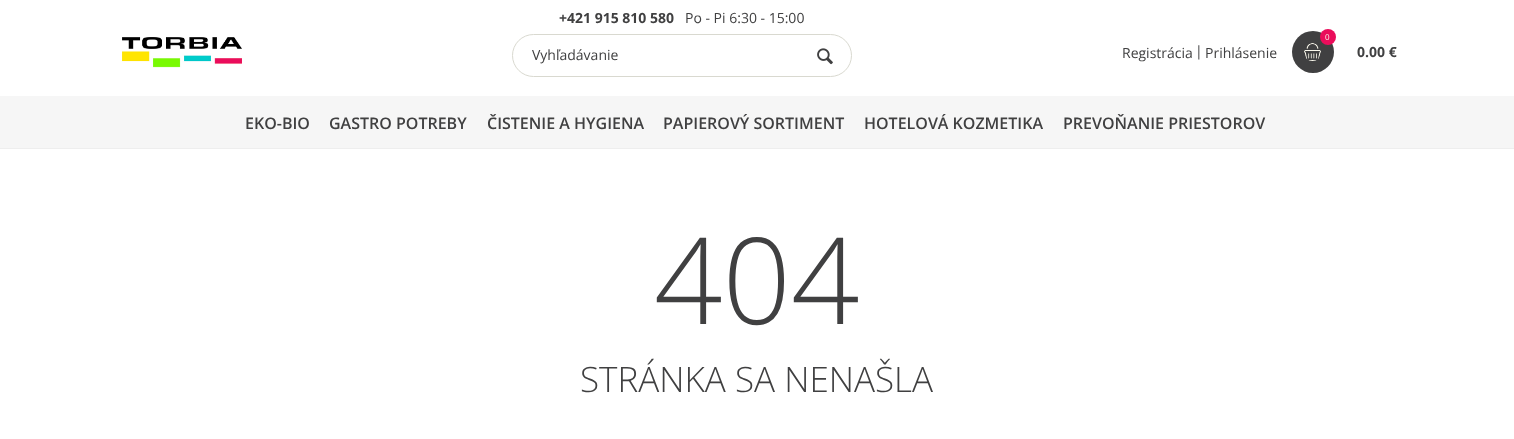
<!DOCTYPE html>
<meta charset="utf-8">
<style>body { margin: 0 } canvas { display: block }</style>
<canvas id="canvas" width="1514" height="439"></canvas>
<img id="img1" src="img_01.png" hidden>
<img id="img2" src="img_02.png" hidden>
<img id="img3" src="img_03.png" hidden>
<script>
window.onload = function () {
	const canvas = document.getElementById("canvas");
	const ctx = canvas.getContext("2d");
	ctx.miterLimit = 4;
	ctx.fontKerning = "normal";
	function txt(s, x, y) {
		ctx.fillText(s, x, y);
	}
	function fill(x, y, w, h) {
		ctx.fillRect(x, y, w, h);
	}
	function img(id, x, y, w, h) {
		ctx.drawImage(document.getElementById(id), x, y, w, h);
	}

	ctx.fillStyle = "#FFFFFF";
	fill(0, 0, 1514, 439);
	ctx.fillStyle = "#F6F6F6";
	fill(0, 96, 1514, 52);
	ctx.fillStyle = "#EEEEEE";
	fill(0, 148, 1514, 1);
	img("img1", 122, 37, 120, 31);
	ctx.beginPath();
	ctx.roundRect(512.5, 34.5, 339, 42, 21);
	ctx.strokeStyle = "#D9D9D0";
	ctx.stroke();
	img("img2", 817, 48, 16, 17);
	ctx.fillStyle = "#404041";
	ctx.beginPath();
	ctx.arc(1313, 52, 21, 0, Math.PI * 2);
	ctx.fill();
	img("img3", 1304, 43, 17, 18);
	ctx.fillStyle = "#EA0D5B";
	ctx.beginPath();
	ctx.arc(1328, 37, 8, 0, Math.PI * 2);
	ctx.fill();
	ctx.font = "bold 14px Open Sans";
	ctx.fillStyle = "#404041";
	txt("+421 915 810 580", 559, 23);
	ctx.font = "14px Open Sans";
	txt("Po - Pi 6:30 - 15:00", 685, 23);
	txt("Vyhľadávanie", 532, 60);
	txt("Registrácia", 1122, 58);
	txt("|", 1195, 56);
	txt("Prihlásenie", 1205, 58);
	ctx.font = "8px Open Sans";
	ctx.fillStyle = "#FAF8EC";
	txt("0", 1325, 40);
	ctx.font = "bold 14px Open Sans";
	ctx.fillStyle = "#404041";
	txt("0.00 €", 1357, 57);
	ctx.font = "600 16px Open Sans";
	txt("EKO-BIO", 245, 129);
	txt("GASTRO POTREBY", 329, 129);
	txt("ČISTENIE A HYGIENA", 487, 129);
	txt("PAPIEROVÝ SORTIMENT", 663, 129);
	txt("HOTELOVÁ KOZMETIKA", 864, 129);
	txt("PREVOŇANIE PRIESTOROV", 1063, 129);
	ctx.font = "300 120px Open Sans";
	txt("404", 654, 324);
	ctx.font = "300 35px Open Sans";
	txt("STRÁNKA SA NENAŠLA", 580, 392);
};
</script>
